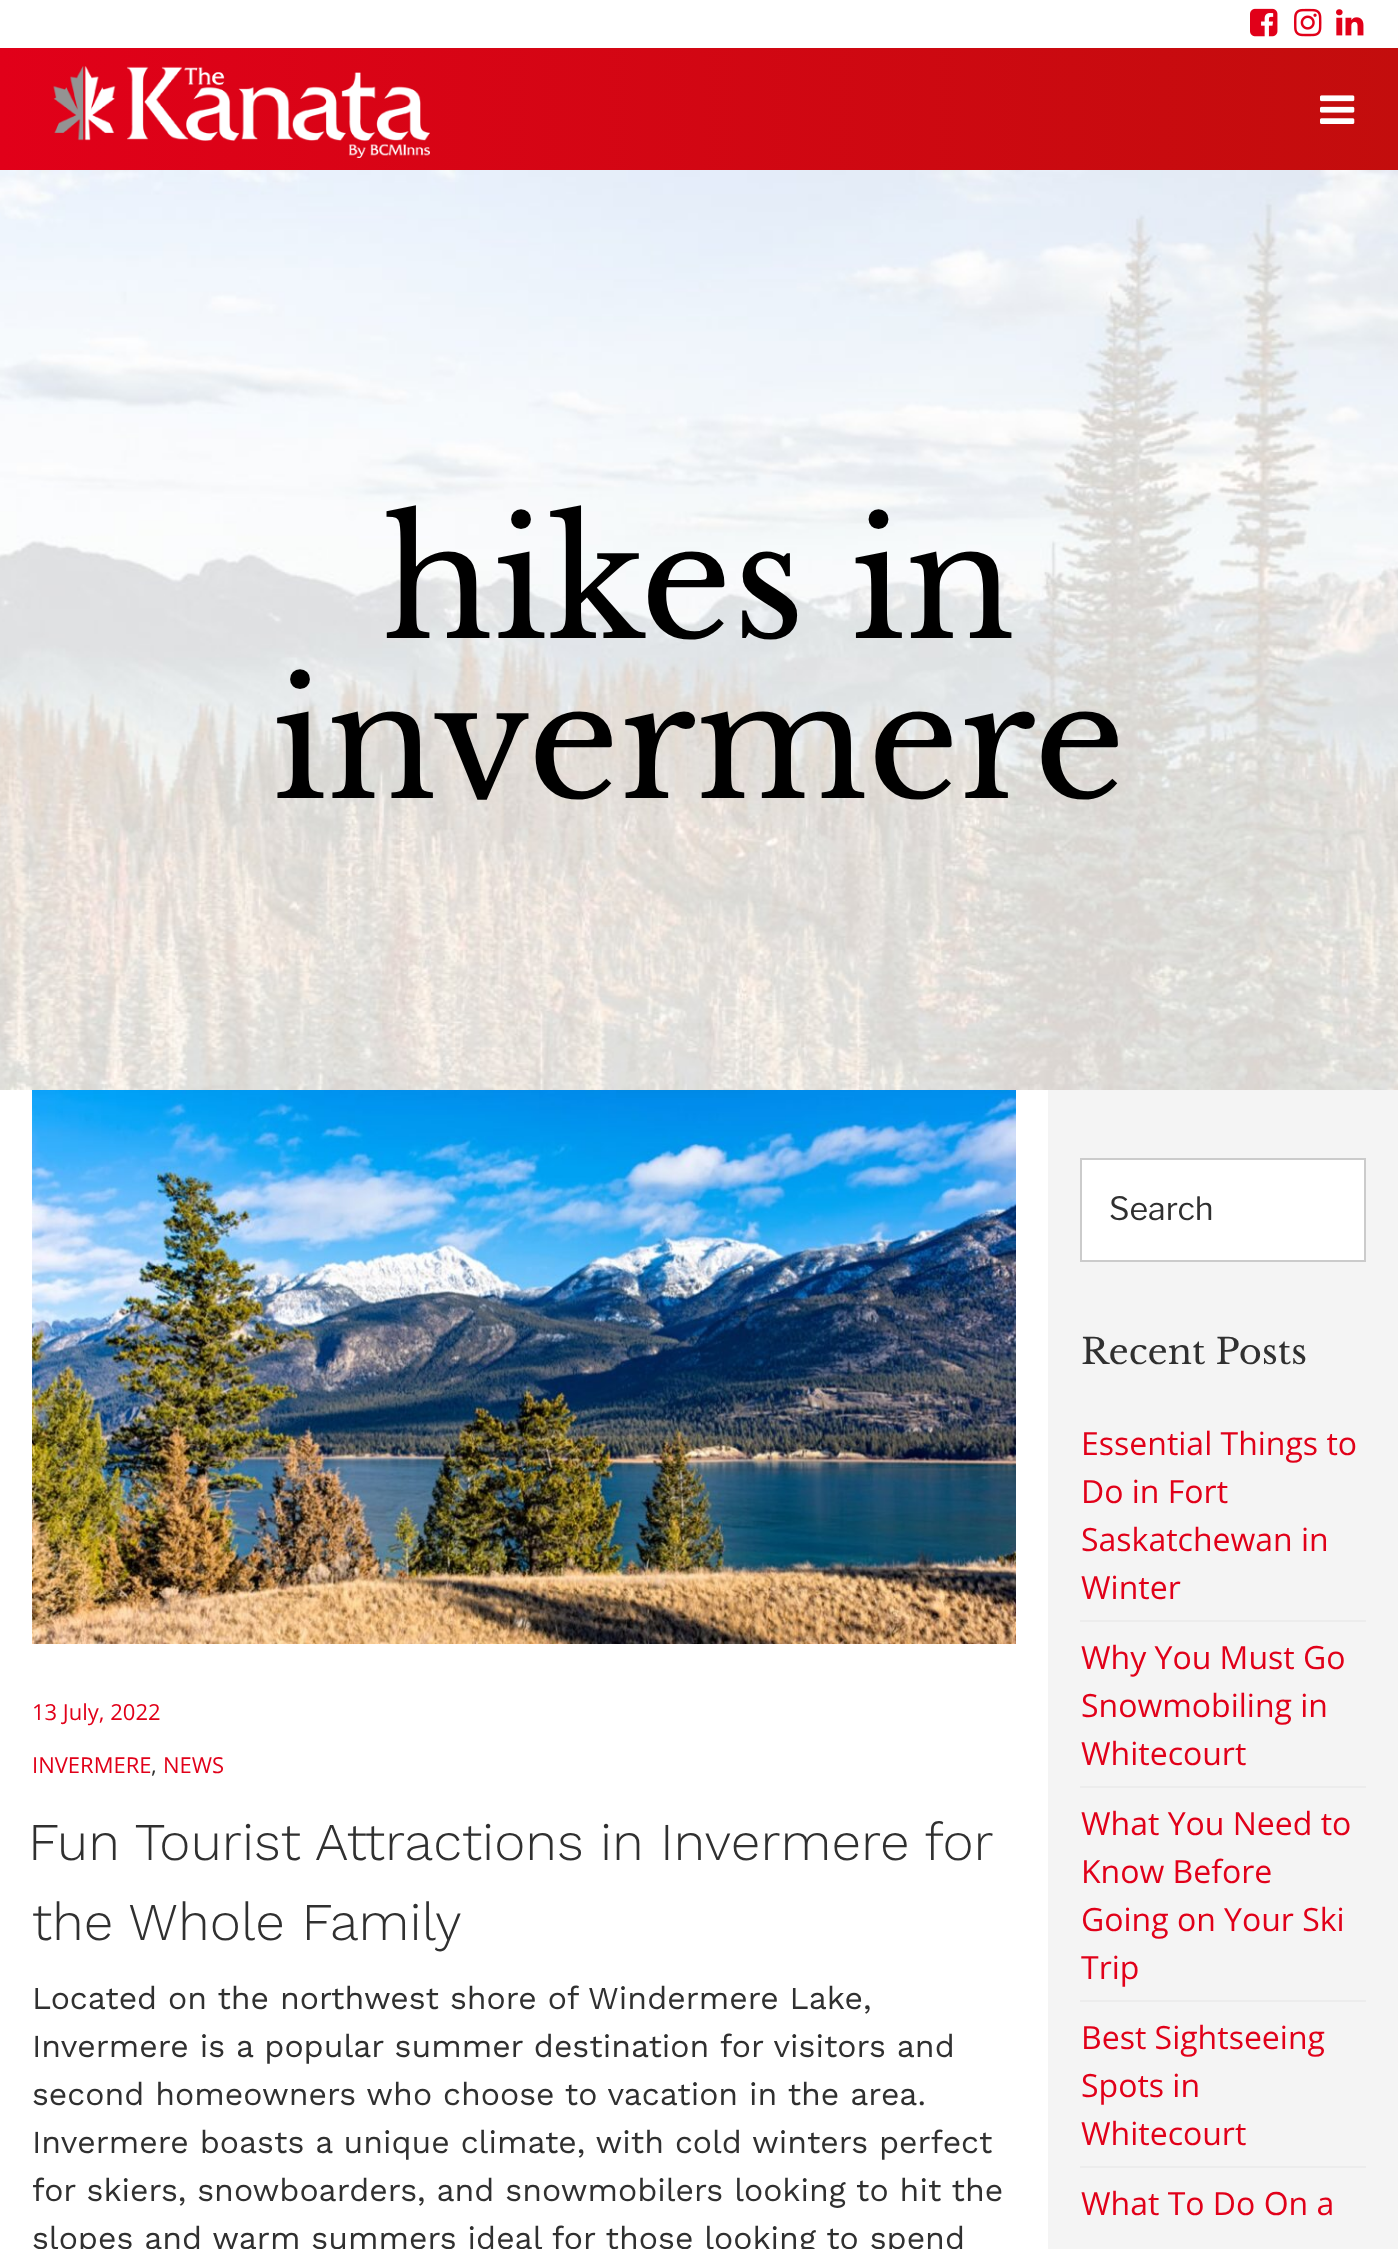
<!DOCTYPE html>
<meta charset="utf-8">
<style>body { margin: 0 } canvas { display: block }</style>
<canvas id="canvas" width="1398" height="2249"></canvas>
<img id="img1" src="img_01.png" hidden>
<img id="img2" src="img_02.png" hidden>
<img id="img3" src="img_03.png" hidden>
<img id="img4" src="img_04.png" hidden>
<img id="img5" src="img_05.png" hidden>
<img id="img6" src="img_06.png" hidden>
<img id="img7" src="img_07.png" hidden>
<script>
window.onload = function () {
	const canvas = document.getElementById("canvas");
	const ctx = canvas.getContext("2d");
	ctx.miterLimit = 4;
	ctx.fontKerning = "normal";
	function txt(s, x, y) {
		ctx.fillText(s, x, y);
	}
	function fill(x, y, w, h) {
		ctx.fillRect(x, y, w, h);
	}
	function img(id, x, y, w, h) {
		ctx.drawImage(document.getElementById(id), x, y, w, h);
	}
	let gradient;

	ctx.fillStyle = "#FFFFFF";
	fill(0, 0, 1398, 2249);
	img("img1", 1250, 8, 28, 29);
	img("img2", 1294, 8, 28, 29);
	img("img3", 1336, 9, 28, 27);
	gradient = ctx.createLinearGradient(1398, 109, 0, 109);
	gradient.addColorStop(0, "#C30D0D");
	gradient.addColorStop(1, "#E10019");
	ctx.fillStyle = gradient;
	fill(0, 48, 1398, 122);
	img("img4", 53, 66, 377, 92);
	img("img5", 1320, 95, 35, 29);
	img("img6", 0, 170, 1398, 920);
	img("img7", 32, 1090, 984, 554);
	ctx.fillStyle = "#F4F4F4";
	fill(1048, 1090, 350, 1159);
	ctx.fillStyle = "#FFFFFF";
	ctx.beginPath();
	ctx.rect(1081, 1159, 284, 102);
	ctx.fill();
	ctx.strokeStyle = "#CBCBCB";
	ctx.lineWidth = 2;
	ctx.stroke();
	ctx.fillStyle = "#ECECEC";
	fill(1080, 1620, 286, 2);
	fill(1080, 1786, 286, 2);
	fill(1080, 2000, 286, 2);
	fill(1080, 2166, 286, 2);
	ctx.font = "160px Libre Baskerville";
	ctx.fillStyle = "#000000";
	txt("hikes in", 383, 638);
	txt("invermere", 272, 798);
	ctx.font = "22px Open Sans";
	ctx.fillStyle = "#E10019";
	txt("13 July, 2022", 32, 1720);
	txt("INVERMERE", 32, 1773);
	ctx.fillStyle = "#303030";
	txt(",", 151, 1773);
	ctx.fillStyle = "#E10019";
	txt("NEWS", 163, 1773);
	ctx.wordSpacing = "-0.5px";
	ctx.font = "300 53.1px Work Sans";
	ctx.fillStyle = "#303030";
	txt("Fun Tourist Attractions in Invermere for", 28, 1860);
	ctx.wordSpacing = "0px";
	txt("the Whole Family", 32, 1940);
	ctx.font = "32px Work Sans";
	txt("Located on the northwest shore of Windermere Lake,", 32, 2009);
	txt("Invermere is a popular summer destination for visitors and", 32, 2057);
	txt("second homeowners who choose to vacation in the area.", 32, 2105);
	txt("Invermere boasts a unique climate, with cold winters perfect", 32, 2153);
	txt("for skiers, snowboarders, and snowmobilers looking to hit the", 32, 2201);
	txt("slopes and warm summers ideal for those looking to spend", 32, 2249);
	ctx.font = "32px Libre Franklin";
	txt("Search", 1109, 1220);
	ctx.font = "35.25px Libre Baskerville";
	txt("Recent Posts", 1081, 1364);
	ctx.font = "32px Open Sans";
	ctx.fillStyle = "#E10019";
	txt("Essential Things to", 1081, 1455);
	txt("Do in Fort", 1081, 1503);
	txt("Saskatchewan in", 1081, 1551);
	txt("Winter", 1081, 1599);
	txt("Why You Must Go", 1081, 1669);
	txt("Snowmobiling in", 1081, 1717);
	txt("Whitecourt", 1081, 1765);
	txt("What You Need to", 1081, 1835);
	txt("Know Before", 1081, 1883);
	txt("Going on Your Ski", 1081, 1931);
	txt("Trip", 1081, 1979);
	txt("Best Sightseeing", 1081, 2049);
	txt("Spots in", 1081, 2097);
	txt("Whitecourt", 1081, 2145);
	txt("What To Do On a", 1081, 2215);
};
</script>
